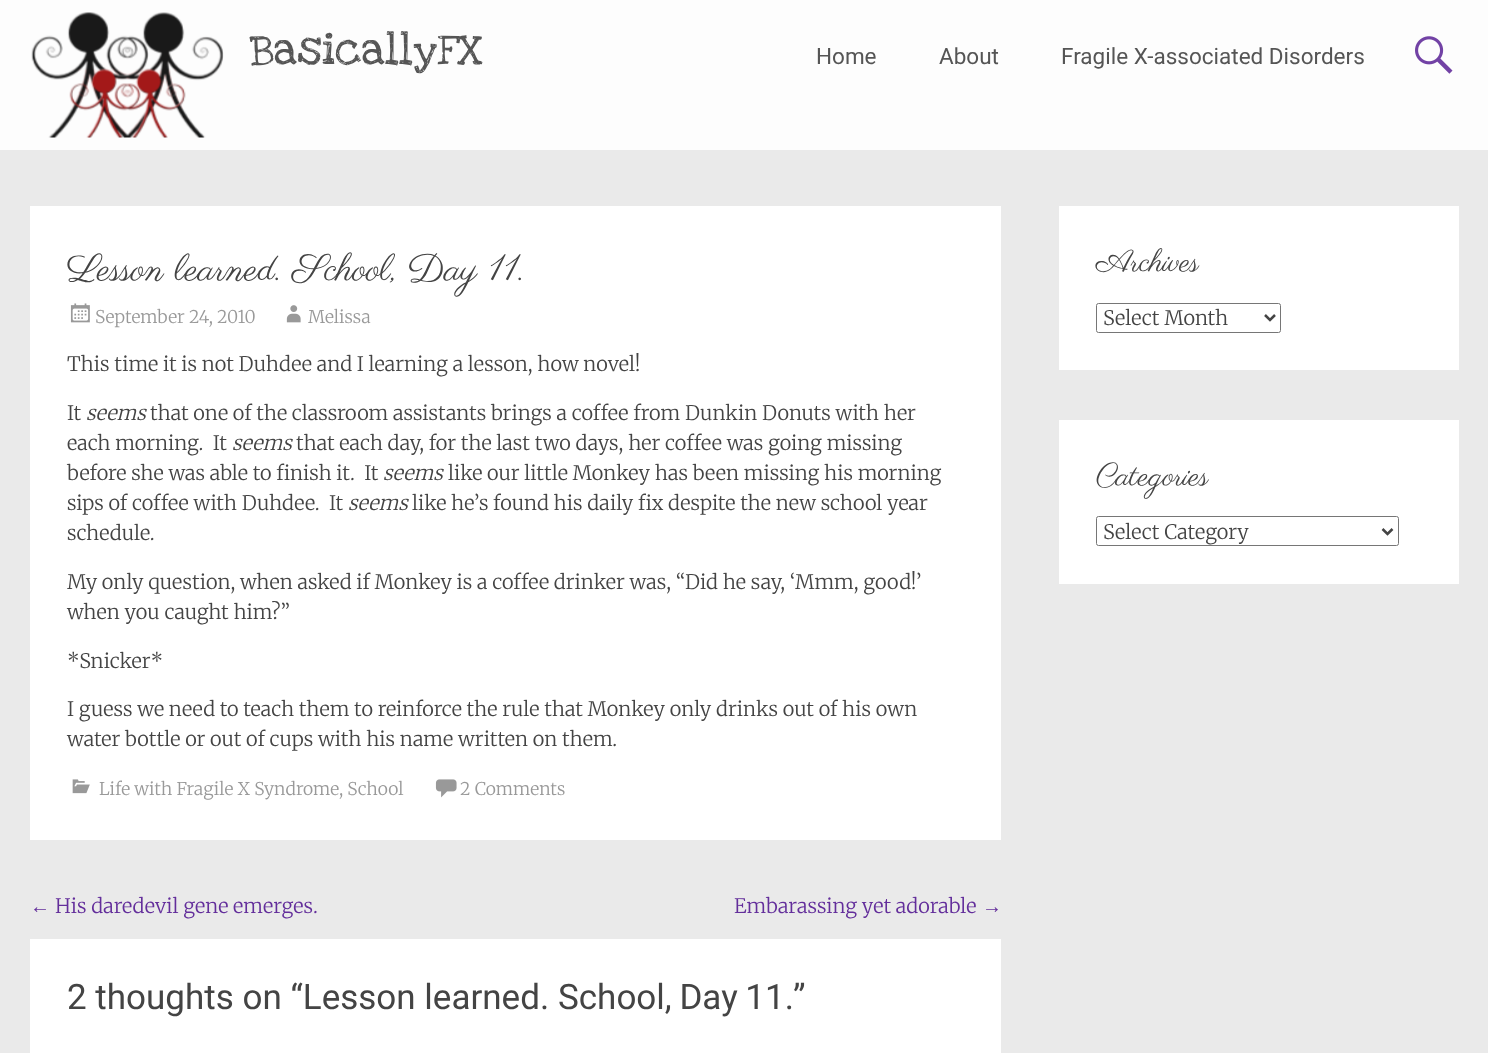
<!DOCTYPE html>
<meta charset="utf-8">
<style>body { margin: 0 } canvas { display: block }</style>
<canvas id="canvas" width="1488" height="1053"></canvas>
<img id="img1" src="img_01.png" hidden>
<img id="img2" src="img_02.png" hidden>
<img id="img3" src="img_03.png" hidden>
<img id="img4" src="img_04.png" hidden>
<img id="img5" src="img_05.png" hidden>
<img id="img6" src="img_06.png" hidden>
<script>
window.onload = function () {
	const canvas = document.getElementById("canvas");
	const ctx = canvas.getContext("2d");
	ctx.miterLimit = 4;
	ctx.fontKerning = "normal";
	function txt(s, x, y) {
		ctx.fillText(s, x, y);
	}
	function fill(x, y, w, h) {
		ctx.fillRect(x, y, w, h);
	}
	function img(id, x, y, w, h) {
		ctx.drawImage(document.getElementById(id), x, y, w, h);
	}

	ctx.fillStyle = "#EAEAEA";
	fill(0, 0, 1488, 1053);
	ctx.fillStyle = "#FDFDFD";
	fill(0, 0, 1488, 150);
	img("img1", 31, 12, 193, 126);
	img("img2", 1415, 36, 38, 38);
	ctx.fillStyle = "#FFFFFF";
	fill(30, 206, 971, 634);
	img("img3", 70, 303, 20, 20);
	img("img4", 286, 305, 15, 18);
	img("img5", 72, 779, 18, 15);
	img("img6", 435, 779, 22, 19);
	fill(30, 939, 971, 114);
	fill(1059, 206, 400, 164);
	ctx.beginPath();
	ctx.roundRect(1096.5, 303.5, 184, 29, 2);
	ctx.strokeStyle = "#767676";
	ctx.stroke();
	ctx.beginPath();
	ctx.moveTo(1265, 315);
	ctx.lineTo(1270, 320);
	ctx.lineTo(1275, 315);
	ctx.strokeStyle = "#444444";
	ctx.lineWidth = 2.5;
	ctx.stroke();
	fill(1059, 420, 400, 164);
	ctx.beginPath();
	ctx.roundRect(1096.5, 516.5, 302, 29, 2);
	ctx.strokeStyle = "#767676";
	ctx.lineWidth = 1;
	ctx.stroke();
	ctx.beginPath();
	ctx.moveTo(1382.5, 529);
	ctx.lineTo(1387.5, 534);
	ctx.lineTo(1392.5, 529);
	ctx.strokeStyle = "#444444";
	ctx.lineWidth = 2.5;
	ctx.stroke();
	ctx.font = "45px Love Ya Like A Sister";
	ctx.fillStyle = "#555555";
	txt("BasicallyFX", 250, 64);
	ctx.font = "22.5px Roboto";
	txt("Home", 816, 64);
	txt("About", 939, 64);
	txt("Fragile X-associated Disorders", 1061, 64);
	ctx.font = "37.5px Parisienne";
	ctx.fillStyle = "#444444";
	txt("Lesson learned. School, Day 11.", 67, 280);
	ctx.font = "300 17.5px Merriweather";
	ctx.fillStyle = "#999999";
	txt("September 24, 2010", 95, 323);
	txt("Melissa", 308, 323);
	ctx.font = "300 20px Merriweather";
	ctx.fillStyle = "#444444";
	txt("This time it is not Duhdee and I learning a lesson, how novel!", 67, 371);
	txt("It", 67, 420);
	ctx.font = "italic 300 20px Merriweather";
	txt("seems", 86, 420);
	ctx.font = "300 20px Merriweather";
	txt("that one of the classroom assistants brings a coffee from Dunkin Donuts with her", 150, 420);
	txt("each morning.  It", 67, 450);
	ctx.font = "italic 300 20px Merriweather";
	txt("seems", 232, 450);
	ctx.font = "300 20px Merriweather";
	txt("that each day, for the last two days, her coffee was going missing", 296, 450);
	txt("before she was able to finish it.  It", 67, 480);
	ctx.font = "italic 300 20px Merriweather";
	txt("seems", 383, 480);
	ctx.font = "300 20px Merriweather";
	txt("like our little Monkey has been missing his morning", 448, 480);
	txt("sips of coffee with Duhdee.  It", 67, 510);
	ctx.font = "italic 300 20px Merriweather";
	txt("seems", 348, 510);
	ctx.font = "300 20px Merriweather";
	txt("like he’s found his daily fix despite the new school year", 412, 510);
	txt("schedule.", 67, 540);
	txt("My only question, when asked if Monkey is a coffee drinker was, “Did he say, ‘Mmm, good!’", 67, 589);
	txt("when you caught him?”", 67, 619);
	txt("*Snicker*", 67, 668);
	txt("I guess we need to teach them to reinforce the rule that Monkey only drinks out of his own", 67, 716);
	txt("water bottle or out of cups with his name written on them.", 67, 746);
	ctx.font = "300 17.5px Merriweather";
	ctx.fillStyle = "#999999";
	txt("Life with Fragile X Syndrome, School", 99, 795);
	txt("2 Comments", 460, 795);
	ctx.font = "20px Liberation Serif";
	ctx.fillStyle = "#632E9B";
	txt("←", 30, 913);
	ctx.font = "300 20px Merriweather";
	txt("His daredevil gene emerges.", 55, 913);
	txt("Embarassing yet adorable", 734, 913);
	ctx.font = "20px Liberation Serif";
	txt("→", 982, 913);
	ctx.font = "35px Roboto";
	ctx.fillStyle = "#444444";
	txt("2 thoughts on “Lesson learned.", 67, 1009);
	ctx.wordSpacing = "-1px";
	txt("School, Day 11.", 558, 1009);
	ctx.wordSpacing = "0px";
	txt("”", 793, 1009);
	ctx.font = "31px Parisienne";
	txt("Archives", 1096, 271);
	ctx.font = "300 20px Merriweather";
	txt("Select Month", 1103, 325);
	ctx.font = "31px Parisienne";
	txt("Categories", 1096, 485);
	ctx.font = "300 20px Merriweather";
	txt("Select Category", 1103, 539);
};
</script>
